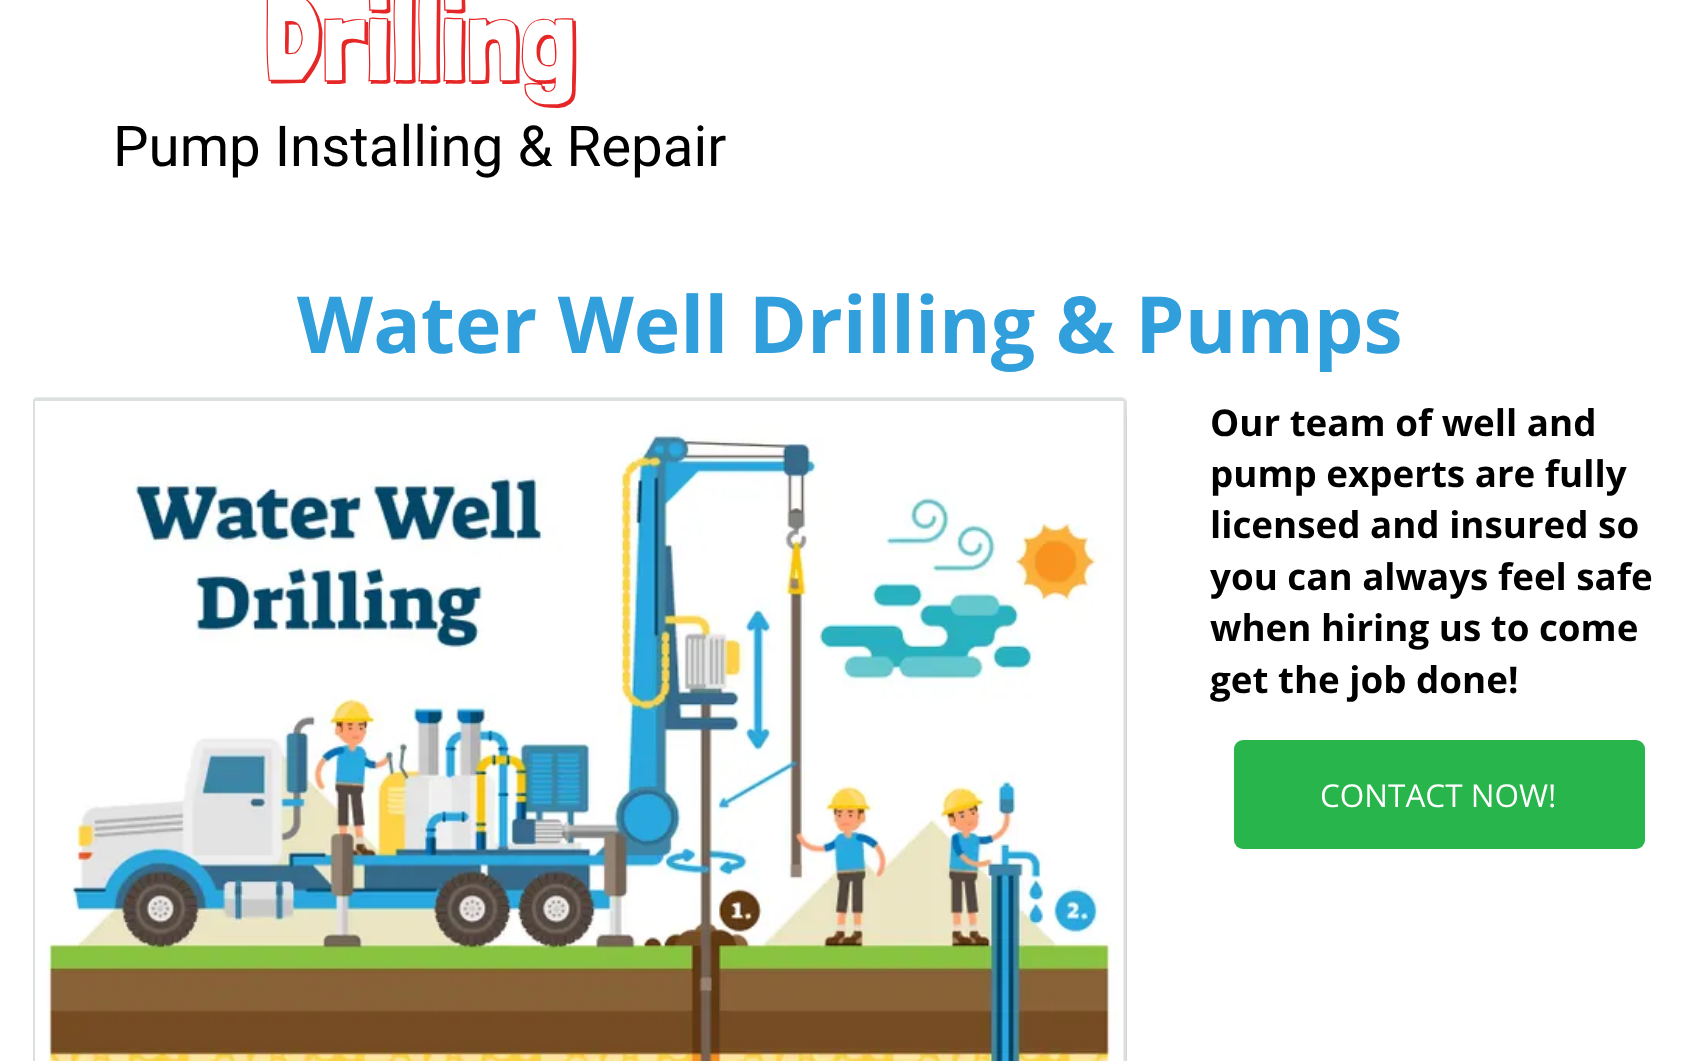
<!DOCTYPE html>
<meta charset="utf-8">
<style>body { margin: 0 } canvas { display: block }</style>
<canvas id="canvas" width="1698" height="1061"></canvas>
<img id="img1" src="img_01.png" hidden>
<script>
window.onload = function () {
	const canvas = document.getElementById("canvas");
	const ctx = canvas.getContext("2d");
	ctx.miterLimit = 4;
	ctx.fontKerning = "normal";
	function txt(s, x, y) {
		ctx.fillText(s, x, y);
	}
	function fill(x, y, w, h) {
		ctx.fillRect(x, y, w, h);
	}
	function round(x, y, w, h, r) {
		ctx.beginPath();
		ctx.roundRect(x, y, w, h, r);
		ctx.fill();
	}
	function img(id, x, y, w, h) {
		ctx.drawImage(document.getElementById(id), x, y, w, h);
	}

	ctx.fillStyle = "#FFFFFF";
	fill(0, 0, 1698, 1061);
	img("img1", 33, 397, 1094, 664);
	ctx.fillStyle = "#28B54B";
	round(1234, 740, 411, 109, 9);
	ctx.font = "121px Londrina Shadow";
	ctx.fillStyle = "#E62727";
	txt("Drilling", 263, 80);
	ctx.font = "56.4px Roboto";
	ctx.fillStyle = "#000000";
	txt("Pump Installing & Repair", 113, 166);
	ctx.font = "bold 78.75px Open Sans";
	ctx.fillStyle = "#309FDB";
	txt("Water Well Drilling & Pumps", 297, 353);
	ctx.font = "bold 36.75px Open Sans";
	ctx.fillStyle = "#000000";
	txt("Our team of well and", 1210, 436);
	txt("pump experts are fully", 1210, 487);
	txt("licensed and insured so", 1210, 538);
	txt("you can always feel safe", 1210, 590);
	txt("when hiring us to come", 1210, 641);
	txt("get the job done!", 1210, 693);
	ctx.font = "31.5px Open Sans";
	ctx.fillStyle = "#FFFFFF";
	txt("CONTACT NOW!", 1320, 807);
};
</script>
